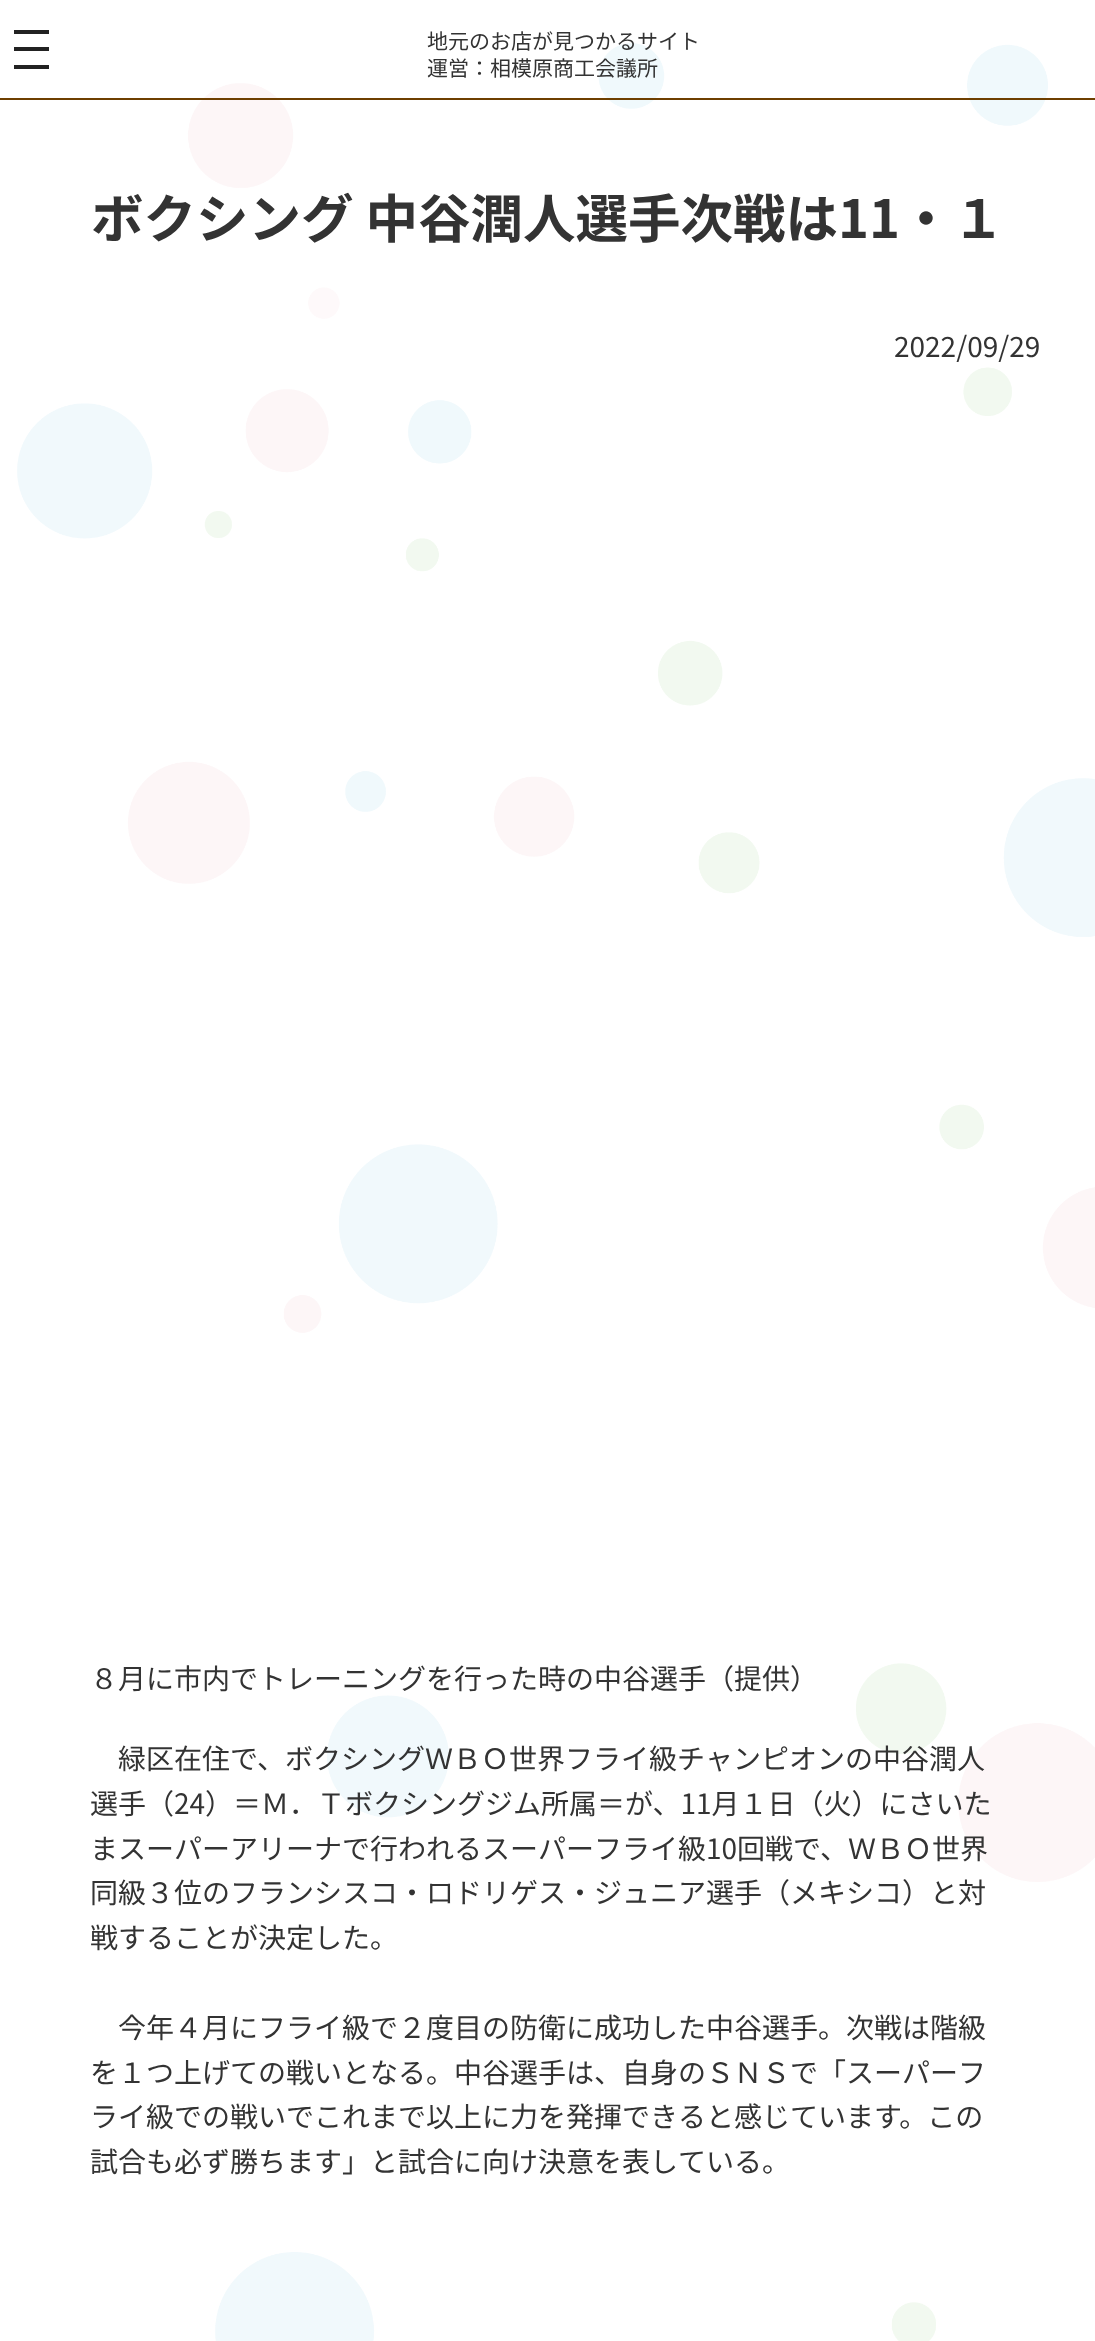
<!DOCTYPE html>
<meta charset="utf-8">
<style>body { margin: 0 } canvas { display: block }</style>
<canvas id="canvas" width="1095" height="2341"></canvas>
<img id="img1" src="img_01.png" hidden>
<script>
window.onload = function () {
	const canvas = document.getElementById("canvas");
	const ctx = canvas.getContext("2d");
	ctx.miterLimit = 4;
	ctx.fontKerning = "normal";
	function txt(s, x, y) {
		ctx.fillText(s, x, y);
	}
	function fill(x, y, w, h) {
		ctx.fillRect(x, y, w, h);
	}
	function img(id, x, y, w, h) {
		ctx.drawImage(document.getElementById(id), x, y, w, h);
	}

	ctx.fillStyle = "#FFFFFF";
	fill(0, 0, 1095, 2341);
	img("img1", 17, 43, 1078, 2298);
	ctx.fillStyle = "#6E3F00";
	fill(0, 98, 1095, 2);
	ctx.fillStyle = "#222222";
	fill(14, 47, 35, 4);
	fill(14, 30, 35, 4);
	fill(14, 65, 35, 4);
	ctx.font = "21px Noto Sans JP";
	ctx.fillStyle = "#333333";
	txt("地元のお店が見つかるサイト", 427, 49);
	txt("運営：相模原商工会議所", 427, 76);
	ctx.font = "bold 52.5px Noto Sans JP";
	txt("ボクシング 中谷潤人選手次戦は11・１", 91, 238);
	ctx.font = "28px Noto Sans JP";
	txt("2022/09/29", 894, 357);
	txt("８月に市内でトレーニングを行った時の中谷選手（提供）", 90, 1689);
	txt("緑区在住で、ボクシングＷＢＯ世界フライ級チャンピオンの中谷潤人", 118, 1769);
	txt("選手（24）＝Ｍ．Ｔボクシングジム所属＝が、11月１日（火）にさいた", 90, 1814);
	txt("まスーパーアリーナで行われるスーパーフライ級10回戦で、ＷＢＯ世界", 90, 1859);
	txt("同級３位のフランシスコ・ロドリゲス・ジュニア選手（メキシコ）と対", 90, 1903);
	txt("戦することが決定した。", 90, 1948);
	txt("今年４月にフライ級で２度目の防衛に成功した中谷選手。次戦は階級", 118, 2038);
	txt("を１つ上げての戦いとなる。中谷選手は、自身のＳＮＳで「スーパーフ", 90, 2083);
	txt("ライ級での戦いでこれまで以上に力を発揮できると感じています。この", 90, 2127);
	txt("試合も必ず勝ちます」と試合に向け決意を表している。", 90, 2172);
};
</script>
